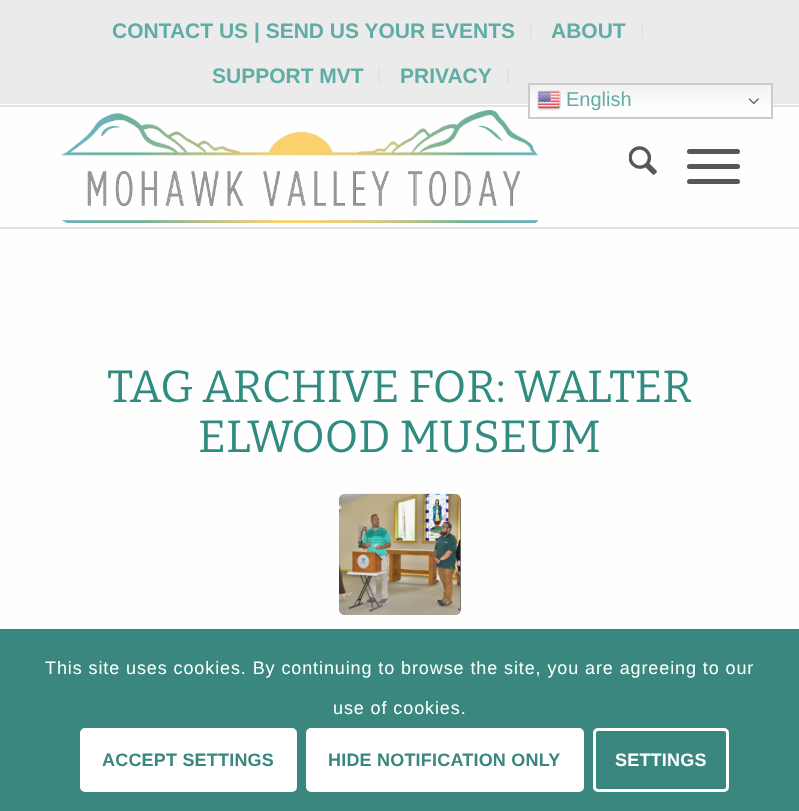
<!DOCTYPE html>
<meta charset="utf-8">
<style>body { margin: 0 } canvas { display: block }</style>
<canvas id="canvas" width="799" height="811"></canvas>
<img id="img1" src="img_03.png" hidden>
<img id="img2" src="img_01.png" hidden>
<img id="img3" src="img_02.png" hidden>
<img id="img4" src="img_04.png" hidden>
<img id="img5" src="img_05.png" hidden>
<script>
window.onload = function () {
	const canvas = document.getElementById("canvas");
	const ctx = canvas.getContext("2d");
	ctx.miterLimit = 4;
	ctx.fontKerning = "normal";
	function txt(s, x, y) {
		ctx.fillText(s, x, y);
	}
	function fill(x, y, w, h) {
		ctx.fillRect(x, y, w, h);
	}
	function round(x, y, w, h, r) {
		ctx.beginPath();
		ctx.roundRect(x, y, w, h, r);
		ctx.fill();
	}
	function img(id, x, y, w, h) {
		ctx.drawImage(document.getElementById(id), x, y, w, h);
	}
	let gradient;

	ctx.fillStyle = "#FEFEFE";
	fill(0, 0, 799, 811);
	ctx.fillStyle = "#EBEBEB";
	fill(0, 0, 799, 104);
	ctx.fillStyle = "#E3E3E3";
	fill(530, 23, 2, 15);
	fill(641, 23, 2, 15);
	fill(378, 68, 2, 15);
	fill(507, 68, 2, 15);
	fill(0, 105, 799, 2);
	gradient = ctx.createLinearGradient(650, 82, 650, 119);
	gradient.addColorStop(0, "#EFEFEF");
	gradient.addColorStop(0.7, "#FFFFFF");
	ctx.fillStyle = gradient;
	fill(530, 85, 241, 22);
	img("img1", 61, 110, 478, 113);
	ctx.strokeStyle = "#CCCCCC";
	ctx.lineWidth = 2;
	ctx.strokeRect(529, 84, 243, 34);
	img("img2", 537, 90, 24, 21);
	img("img3", 749, 98, 10, 7);
	ctx.fillStyle = "#E3E3E3";
	fill(0, 227, 799, 2);
	img("img4", 629, 146, 28, 29);
	ctx.fillStyle = "#575757";
	round(687, 164, 53, 5, 2.5);
	round(687, 149, 53, 5, 2.5);
	round(687, 179, 53, 5, 2.5);
	ctx.fillStyle = "#737373";
	round(339, 494, 122, 121, 6);
	img("img5", 339, 493, 122, 122);
	ctx.fillStyle = "#39877E";
	fill(0, 629, 799, 182);
	ctx.fillStyle = "#FFFFFF";
	ctx.beginPath();
	ctx.roundRect(81.5, 729.5, 214, 61, 3.5);
	ctx.fill();
	ctx.strokeStyle = "#FFFFFF";
	ctx.lineWidth = 3;
	ctx.stroke();
	ctx.beginPath();
	ctx.roundRect(307.5, 729.5, 275, 61, 3.5);
	ctx.fill();
	ctx.stroke();
	ctx.beginPath();
	ctx.roundRect(594.5, 729.5, 133, 61, 3.5);
	ctx.stroke();
	ctx.font = "bold 21px Liberation Sans";
	ctx.fillStyle = "#5FADA4";
	txt("CONTACT US | SEND US YOUR EVENTS", 112, 38);
	txt("ABOUT", 551, 38);
	txt("SUPPORT MVT", 212, 83);
	txt("PRIVACY", 400, 83);
	ctx.font = "20px Liberation Sans";
	txt("English", 566, 106);
	ctx.font = "100 45px Bitter";
	ctx.fillStyle = "#308C81";
	txt("TAG ARCHIVE FOR: WALTER", 107, 402);
	txt("ELWOOD MUSEUM", 198, 452);
	ctx.letterSpacing = "0.9px";
	ctx.font = "18px Liberation Sans";
	ctx.fillStyle = "#FFFFFF";
	txt("This site uses cookies. By continuing to browse the site, you are agreeing to our", 45, 674);
	txt("use of cookies.", 333, 714);
	ctx.letterSpacing = "0.2px";
	ctx.font = "bold 18px Liberation Sans";
	ctx.fillStyle = "#39877E";
	txt("ACCEPT SETTINGS", 102, 766);
	txt("HIDE NOTIFICATION ONLY", 328, 766);
	ctx.fillStyle = "#FFFFFF";
	txt("SETTINGS", 615, 766);
};
</script>
